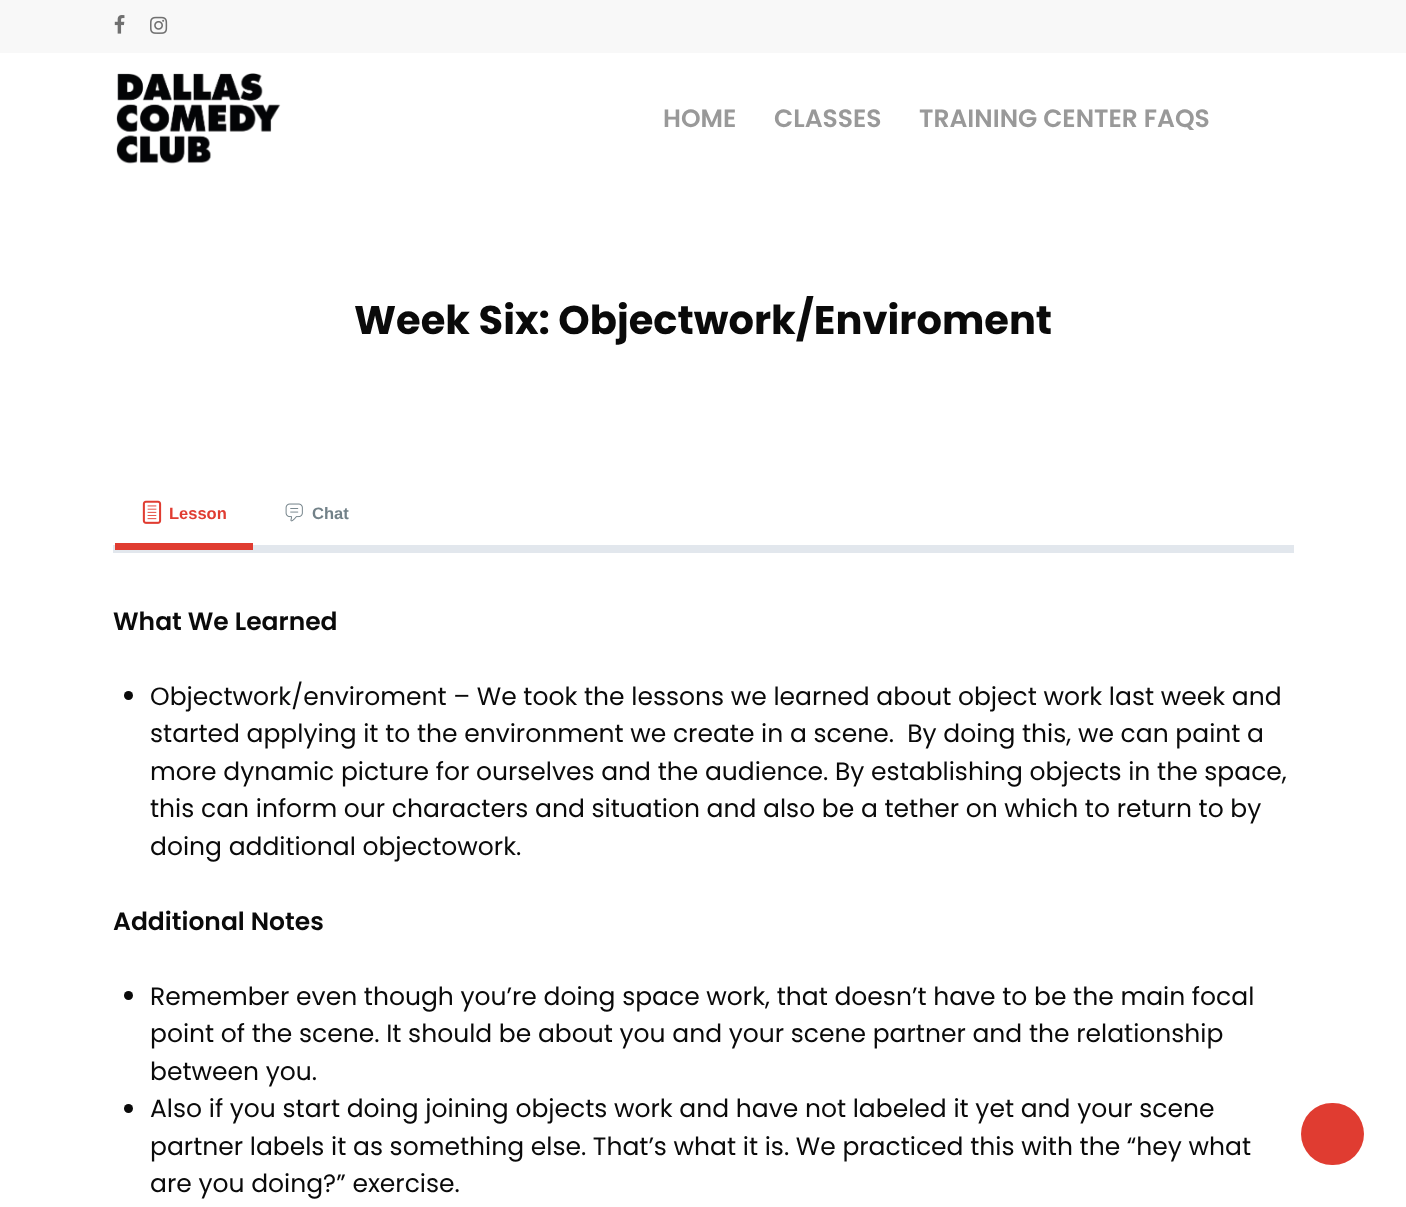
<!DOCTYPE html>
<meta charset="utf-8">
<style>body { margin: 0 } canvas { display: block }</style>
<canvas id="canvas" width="1406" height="1207"></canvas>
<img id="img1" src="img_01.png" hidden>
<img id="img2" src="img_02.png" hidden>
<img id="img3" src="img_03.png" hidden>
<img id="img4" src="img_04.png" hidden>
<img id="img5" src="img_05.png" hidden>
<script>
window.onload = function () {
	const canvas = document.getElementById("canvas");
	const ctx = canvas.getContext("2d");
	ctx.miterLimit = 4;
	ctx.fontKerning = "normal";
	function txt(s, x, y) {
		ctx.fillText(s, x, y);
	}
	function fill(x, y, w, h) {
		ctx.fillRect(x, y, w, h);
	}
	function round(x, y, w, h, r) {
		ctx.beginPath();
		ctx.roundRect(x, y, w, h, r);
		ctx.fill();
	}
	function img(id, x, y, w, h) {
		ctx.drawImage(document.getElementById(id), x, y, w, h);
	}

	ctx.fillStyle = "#FFFFFF";
	fill(0, 0, 1406, 1207);
	ctx.fillStyle = "#F8F8F8";
	fill(0, 0, 1406, 53);
	img("img1", 114, 15, 11, 19);
	img("img2", 150, 16, 18, 18);
	img("img3", 116, 73, 165, 91);
	img("img4", 142, 500, 20, 24);
	ctx.fillStyle = "#E2E7ED";
	fill(113, 545, 1181, 8);
	ctx.fillStyle = "#E03C31";
	fill(115, 543, 138, 7);
	img("img5", 285, 503, 18, 19);
	ctx.fillStyle = "#0A0A0A";
	ctx.beginPath();
	ctx.arc(128.5, 695.5, 4.5, 0, Math.PI * 2);
	ctx.fill();
	ctx.beginPath();
	ctx.arc(128.5, 995.5, 4.5, 0, Math.PI * 2);
	ctx.fill();
	ctx.beginPath();
	ctx.arc(128.5, 1108.5, 4.5, 0, Math.PI * 2);
	ctx.fill();
	ctx.fillStyle = "#E03C31";
	round(1301, 1103, 63, 62, 31);
	ctx.font = "600 25px Poppins";
	ctx.fillStyle = "#999999";
	txt("HOME", 663, 127);
	txt("CLASSES", 774, 127);
	txt("TRAINING CENTER FAQS", 919, 127);
	ctx.font = "bold 40px Poppins";
	ctx.fillStyle = "#0A0A0A";
	txt("Week Six: Objectwork/Enviroment", 354, 334);
	ctx.font = "bold 16.5px Liberation Sans";
	ctx.fillStyle = "#E03C31";
	txt("Lesson", 169, 519);
	ctx.fillStyle = "#728188";
	txt("Chat", 312, 519);
	ctx.font = "600 25px Poppins";
	ctx.fillStyle = "#0A0A0A";
	txt("What We Learned", 113, 630);
	ctx.font = "25px Poppins";
	txt("Objectwork/enviroment – We took the lessons we learned about object work last week and", 150, 705);
	txt("started applying it to the environment we create in a scene.  By doing this, we can paint a", 150, 742);
	txt("more dynamic picture for ourselves and the audience. By establishing objects in the space,", 150, 780);
	txt("this can inform our characters and situation and also be a tether on which to return to by", 150, 817);
	txt("doing additional objectowork.", 150, 855);
	ctx.font = "600 25px Poppins";
	txt("Additional Notes", 113, 930);
	ctx.font = "25px Poppins";
	txt("Remember even though you’re doing space work, that doesn’t have to be the main focal", 150, 1005);
	txt("point of the scene. It should be about you and your scene partner and the relationship", 150, 1042);
	txt("between you.", 150, 1080);
	txt("Also if you start doing joining objects work and have not labeled it yet and your scene", 150, 1117);
	txt("partner labels it as something else. That’s what it is. We practiced this with the “hey what", 150, 1155);
	txt("are you doing?” exercise.", 150, 1192);
};
</script>
